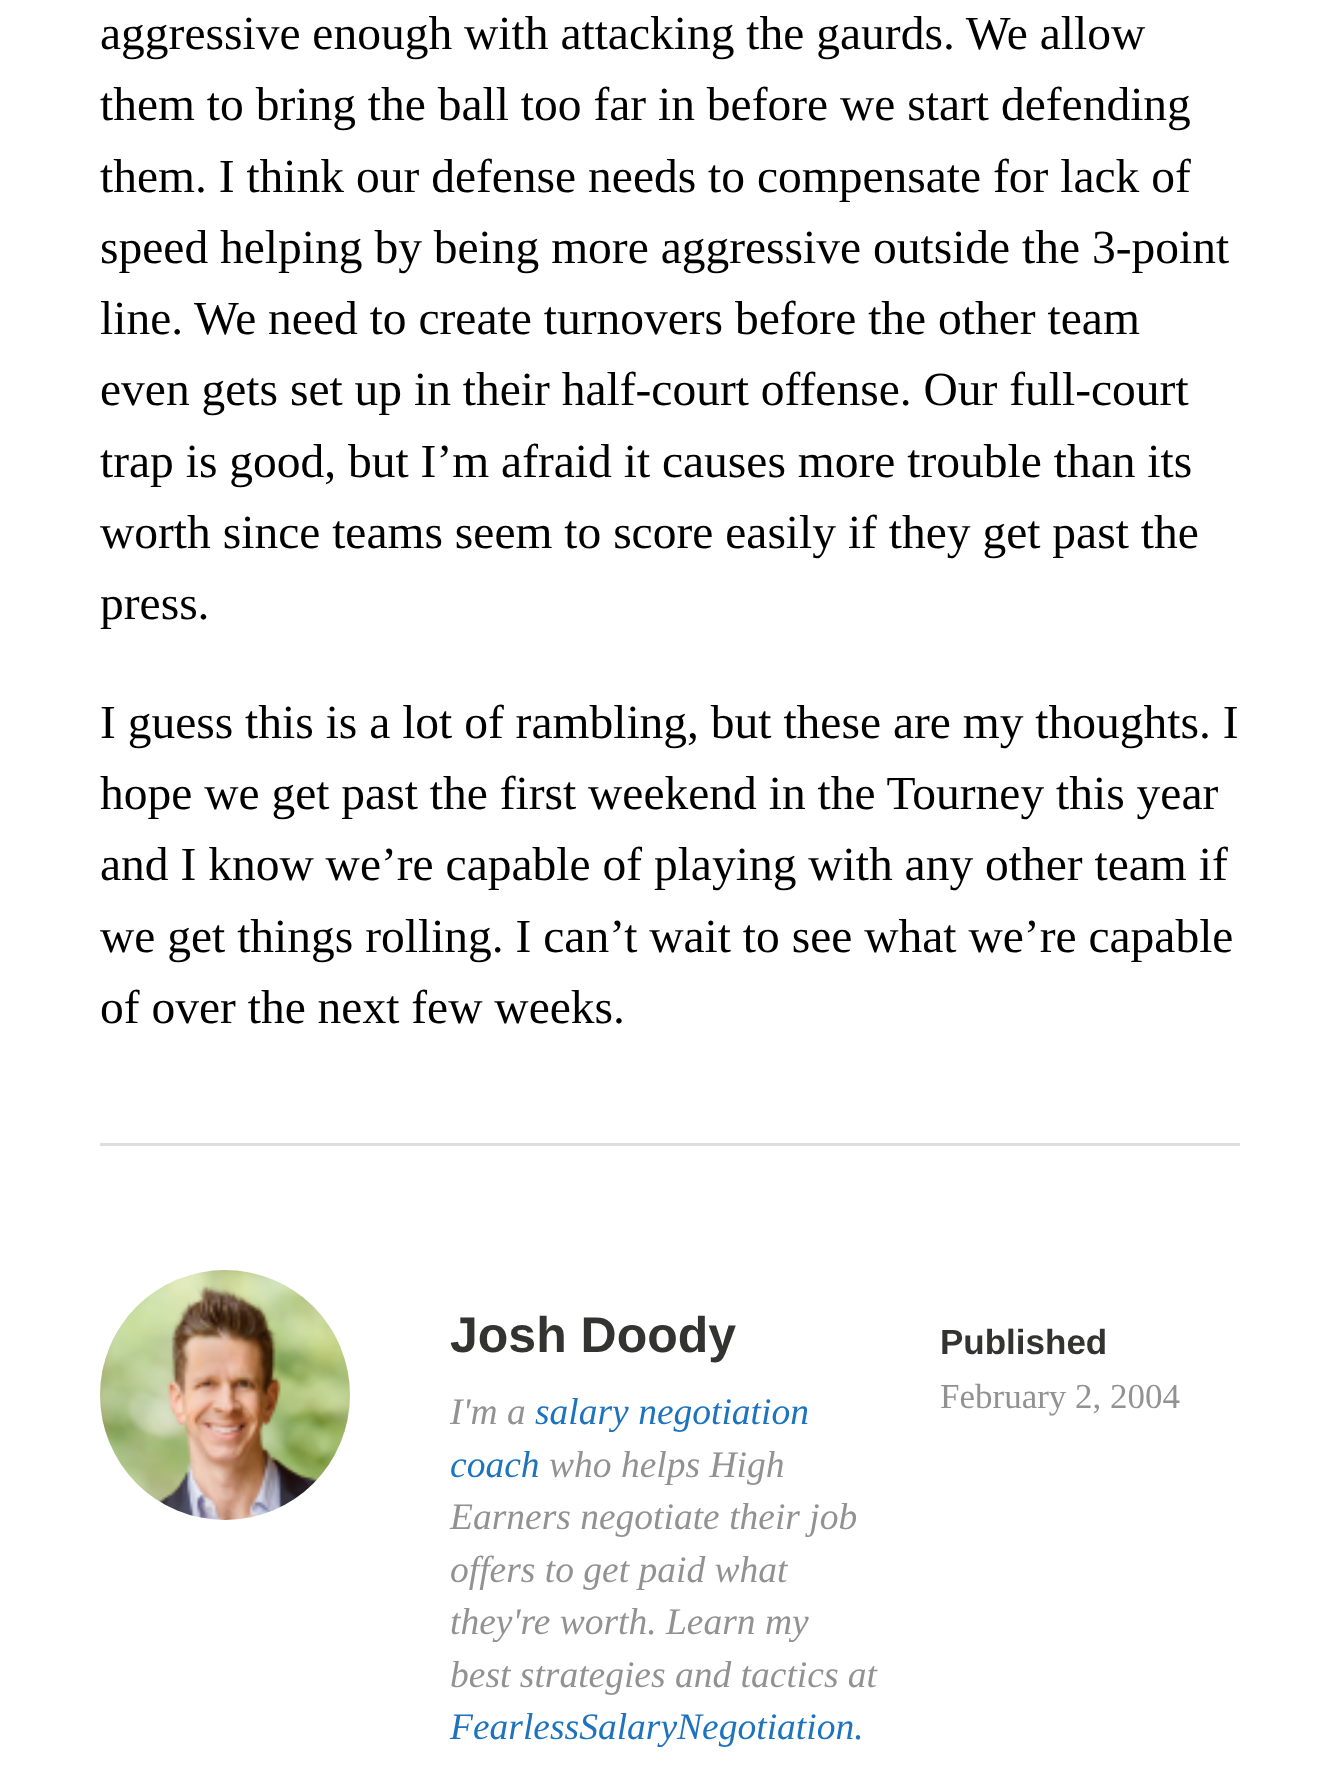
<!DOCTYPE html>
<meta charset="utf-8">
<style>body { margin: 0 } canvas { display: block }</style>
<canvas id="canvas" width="1340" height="1769"></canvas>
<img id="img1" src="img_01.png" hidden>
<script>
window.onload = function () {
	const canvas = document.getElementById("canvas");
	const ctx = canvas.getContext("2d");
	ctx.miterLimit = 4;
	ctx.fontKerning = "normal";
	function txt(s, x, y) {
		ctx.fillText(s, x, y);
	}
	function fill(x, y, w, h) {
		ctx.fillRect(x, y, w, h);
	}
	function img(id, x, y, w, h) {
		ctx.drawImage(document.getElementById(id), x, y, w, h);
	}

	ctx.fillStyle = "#FFFFFF";
	fill(0, 0, 1340, 1769);
	ctx.fillStyle = "#DDDDDD";
	fill(100, 1143, 1140, 3);
	img("img1", 100, 1270, 250, 250);
	ctx.font = "47.5px Liberation Serif";
	ctx.fillStyle = "#000000";
	txt("aggressive enough with attacking the gaurds. We allow", 100, 49);
	txt("them to bring the ball too far in before we start defending", 100, 120);
	txt("them. I think our defense needs to compensate for lack of", 100, 192);
	txt("speed helping by being more aggressive outside the 3-point", 100, 263);
	txt("line. We need to create turnovers before the other team", 100, 334);
	txt("even gets set up in their half-court offense. Our full-court", 100, 405);
	txt("trap is good, but I’m afraid it causes more trouble than its", 100, 477);
	txt("worth since teams seem to score easily if they get past the", 100, 548);
	txt("press.", 100, 619);
	txt("I guess this is a lot of rambling, but these are my thoughts. I", 100, 738);
	txt("hope we get past the first weekend in the Tourney this year", 100, 809);
	txt("and I know we’re capable of playing with any other team if", 100, 880);
	txt("we get things rolling. I can’t wait to see what we’re capable", 100, 952);
	txt("of over the next few weeks.", 100, 1023);
	ctx.font = "bold 50px Liberation Sans";
	ctx.fillStyle = "#333332";
	txt("Josh Doody", 450, 1352);
	ctx.font = "italic 37.5px Liberation Serif";
	ctx.fillStyle = "#929292";
	txt("I'm a", 450, 1424);
	ctx.fillStyle = "#1E73BE";
	txt("salary negotiation", 535, 1424);
	txt("coach", 450, 1477);
	ctx.fillStyle = "#929292";
	txt("who helps High", 549, 1477);
	txt("Earners negotiate their job", 450, 1529);
	txt("offers to get paid what", 450, 1582);
	txt("they're worth. Learn my", 450, 1634);
	txt("best strategies and tactics at", 450, 1687);
	ctx.fillStyle = "#1E73BE";
	txt("FearlessSalaryNegotiation.", 450, 1739);
	ctx.font = "bold 35px Liberation Sans";
	ctx.fillStyle = "#333332";
	txt("Published", 940, 1354);
	ctx.font = "35px Liberation Serif";
	ctx.fillStyle = "#929292";
	txt("February 2, 2004", 940, 1408);
};
</script>
